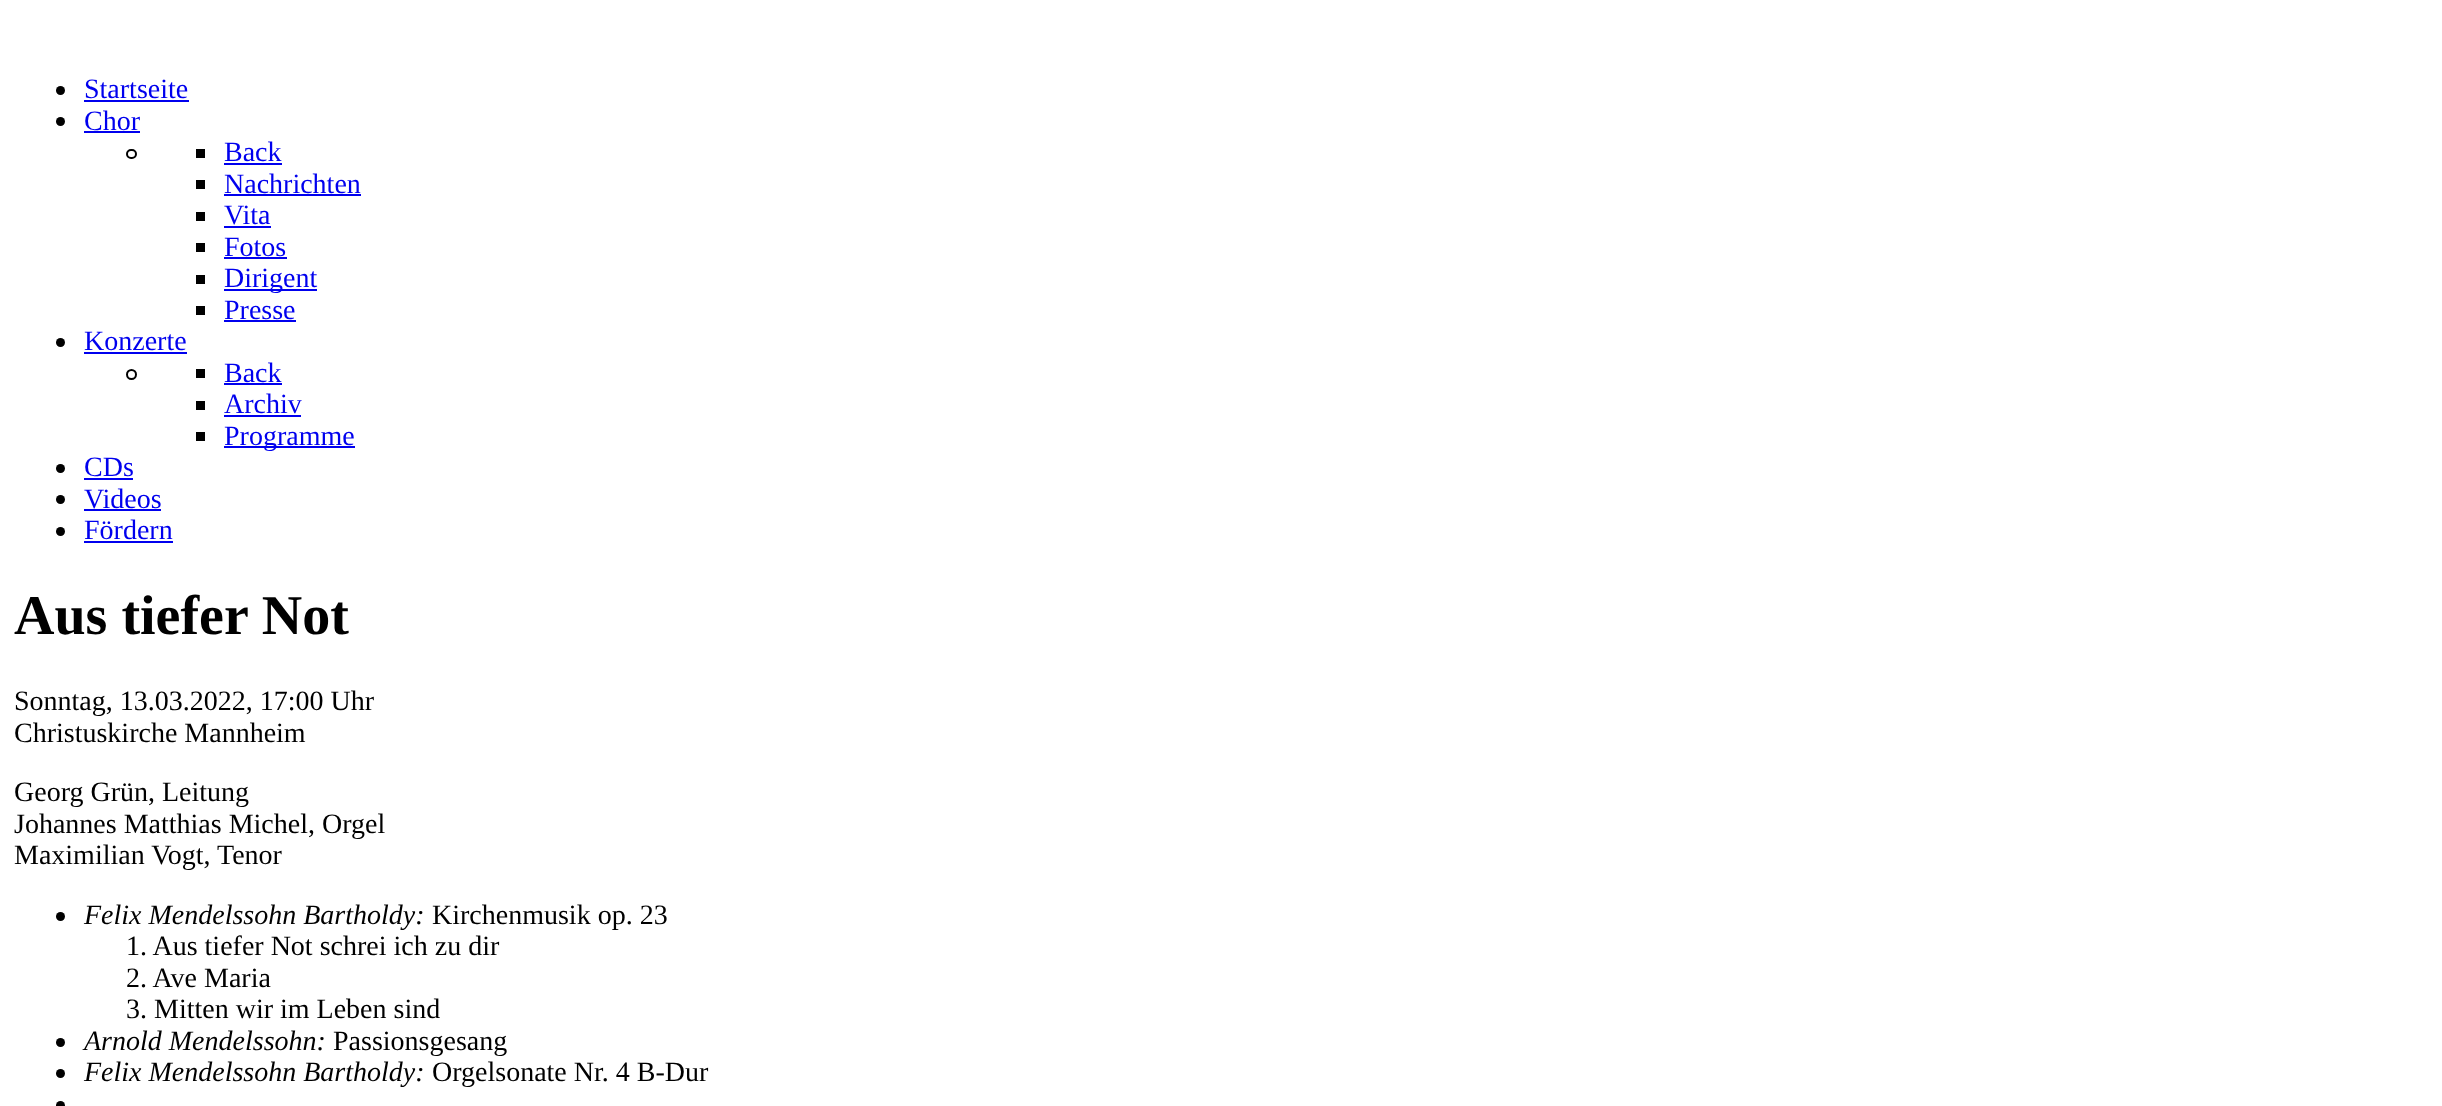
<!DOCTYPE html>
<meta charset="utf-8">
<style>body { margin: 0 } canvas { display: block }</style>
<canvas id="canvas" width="2442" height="1106"></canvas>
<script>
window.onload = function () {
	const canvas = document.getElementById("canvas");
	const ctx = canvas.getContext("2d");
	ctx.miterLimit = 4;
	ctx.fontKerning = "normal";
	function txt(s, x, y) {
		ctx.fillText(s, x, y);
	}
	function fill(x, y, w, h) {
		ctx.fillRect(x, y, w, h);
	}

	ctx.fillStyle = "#FFFFFF";
	fill(0, 0, 2442, 1106);
	ctx.fillStyle = "#000000";
	ctx.beginPath();
	ctx.arc(60.5, 90.5, 4.5, 0, Math.PI * 2);
	ctx.fill();
	ctx.fillStyle = "#0000EE";
	fill(84, 100, 105, 2);
	ctx.fillStyle = "#000000";
	ctx.beginPath();
	ctx.arc(60.5, 121.5, 4.5, 0, Math.PI * 2);
	ctx.fill();
	ctx.fillStyle = "#0000EE";
	fill(84, 131, 56, 2);
	ctx.beginPath();
	ctx.roundRect(127, 150, 9, 8, 4);
	ctx.strokeStyle = "#000000";
	ctx.lineWidth = 2;
	ctx.stroke();
	ctx.fillStyle = "#000000";
	fill(196, 149, 9, 9);
	ctx.fillStyle = "#0000EE";
	fill(224, 163, 58, 2);
	ctx.fillStyle = "#000000";
	fill(196, 180, 9, 9);
	ctx.fillStyle = "#0000EE";
	fill(224, 194, 137, 2);
	ctx.fillStyle = "#000000";
	fill(196, 212, 9, 9);
	ctx.fillStyle = "#0000EE";
	fill(224, 226, 47, 2);
	ctx.fillStyle = "#000000";
	fill(196, 243, 9, 9);
	ctx.fillStyle = "#0000EE";
	fill(224, 257, 63, 2);
	ctx.fillStyle = "#000000";
	fill(196, 275, 9, 9);
	ctx.fillStyle = "#0000EE";
	fill(224, 289, 93, 2);
	ctx.fillStyle = "#000000";
	fill(196, 306, 9, 9);
	ctx.fillStyle = "#0000EE";
	fill(224, 320, 72, 2);
	ctx.fillStyle = "#000000";
	ctx.beginPath();
	ctx.arc(60.5, 342.5, 4.5, 0, Math.PI * 2);
	ctx.fill();
	ctx.fillStyle = "#0000EE";
	fill(84, 352, 103, 2);
	ctx.beginPath();
	ctx.arc(131.5, 374.5, 4.5, 0, Math.PI * 2);
	ctx.stroke();
	ctx.fillStyle = "#000000";
	fill(196, 369, 9, 9);
	ctx.fillStyle = "#0000EE";
	fill(224, 383, 58, 2);
	ctx.fillStyle = "#000000";
	fill(196, 401, 9, 9);
	ctx.fillStyle = "#0000EE";
	fill(224, 415, 77, 2);
	ctx.fillStyle = "#000000";
	fill(196, 432, 9, 9);
	ctx.fillStyle = "#0000EE";
	fill(224, 446, 131, 2);
	ctx.fillStyle = "#000000";
	ctx.beginPath();
	ctx.arc(60.5, 468.5, 4.5, 0, Math.PI * 2);
	ctx.fill();
	ctx.fillStyle = "#0000EE";
	fill(84, 478, 49, 2);
	ctx.fillStyle = "#000000";
	ctx.beginPath();
	ctx.arc(60.5, 499.5, 4.5, 0, Math.PI * 2);
	ctx.fill();
	ctx.fillStyle = "#0000EE";
	fill(84, 509, 77, 2);
	ctx.fillStyle = "#000000";
	ctx.beginPath();
	ctx.arc(60.5, 531.5, 4.5, 0, Math.PI * 2);
	ctx.fill();
	ctx.fillStyle = "#0000EE";
	fill(84, 541, 89, 2);
	ctx.fillStyle = "#000000";
	ctx.beginPath();
	ctx.arc(60.5, 916.5, 4.5, 0, Math.PI * 2);
	ctx.fill();
	ctx.beginPath();
	ctx.arc(60.5, 1042.5, 4.5, 0, Math.PI * 2);
	ctx.fill();
	ctx.beginPath();
	ctx.arc(60.5, 1073.5, 4.5, 0, Math.PI * 2);
	ctx.fill();
	ctx.beginPath();
	ctx.arc(60.5, 1105.5, 4.5, 0, Math.PI * 2);
	ctx.fill();
	ctx.font = "28px Liberation Serif";
	ctx.fillStyle = "#0000EE";
	txt("Startseite", 84, 98);
	txt("Chor", 84, 130);
	txt("Back", 224, 161);
	txt("Nachrichten", 224, 193);
	txt("Vita", 224, 224);
	txt("Fotos", 224, 256);
	txt("Dirigent", 224, 287);
	txt("Presse", 224, 319);
	txt("Konzerte", 84, 350);
	txt("Back", 224, 382);
	txt("Archiv", 224, 413);
	txt("Programme", 224, 445);
	txt("CDs", 84, 476);
	txt("Videos", 84, 508);
	txt("Fördern", 84, 539);
	ctx.font = "bold 56px Liberation Serif";
	ctx.fillStyle = "#000000";
	txt("Aus tiefer Not", 14, 634);
	ctx.font = "28px Liberation Serif";
	txt("Sonntag, 13.03.2022, 17:00 Uhr", 14, 710);
	txt("Christuskirche Mannheim", 14, 742);
	txt("Georg Grün, Leitung", 14, 801);
	txt("Johannes Matthias Michel, Orgel", 14, 833);
	txt("Maximilian Vogt, Tenor", 14, 864);
	ctx.font = "italic 28px Liberation Serif";
	txt("Felix Mendelssohn Bartholdy:", 84, 924);
	ctx.font = "28px Liberation Serif";
	txt("Kirchenmusik op. 23", 432, 924);
	txt("1. Aus tiefer Not schrei ich zu dir", 126, 955);
	txt("2. Ave Maria", 126, 987);
	txt("3. Mitten wir im Leben sind", 126, 1018);
	ctx.font = "italic 28px Liberation Serif";
	txt("Arnold Mendelssohn:", 84, 1050);
	ctx.font = "28px Liberation Serif";
	txt("Passionsgesang", 333, 1050);
	ctx.font = "italic 28px Liberation Serif";
	txt("Felix Mendelssohn Bartholdy:", 84, 1081);
	ctx.font = "28px Liberation Serif";
	txt("Orgelsonate Nr. 4 B-Dur", 432, 1081);
};
</script>
